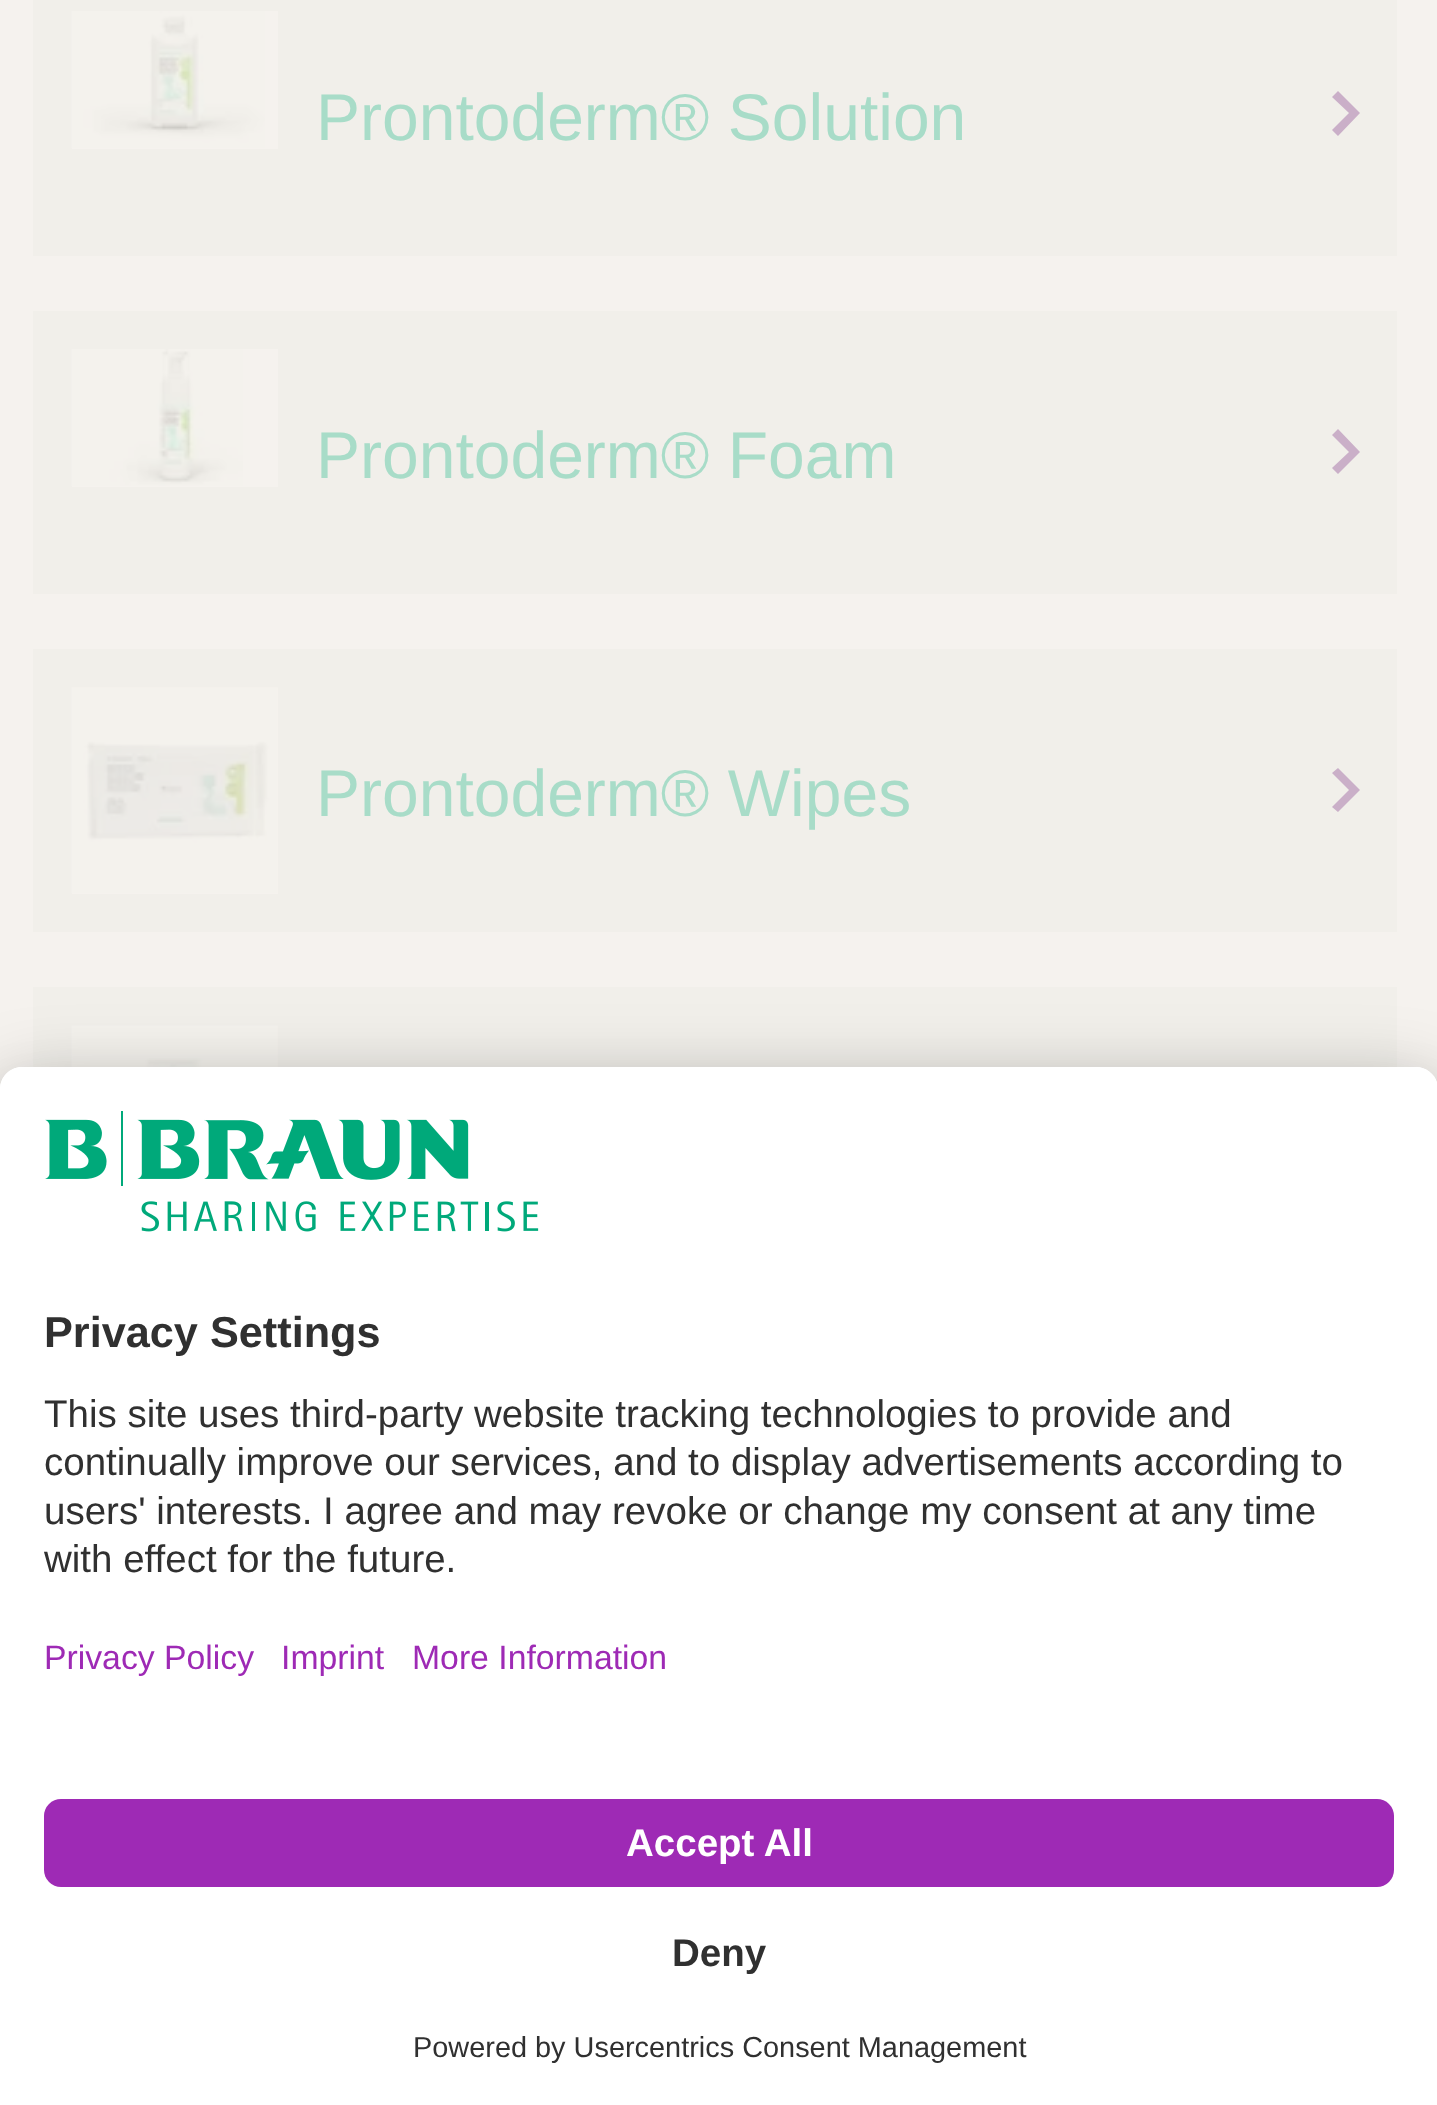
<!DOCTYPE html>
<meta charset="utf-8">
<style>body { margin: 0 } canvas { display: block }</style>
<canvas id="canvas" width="1437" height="2105"></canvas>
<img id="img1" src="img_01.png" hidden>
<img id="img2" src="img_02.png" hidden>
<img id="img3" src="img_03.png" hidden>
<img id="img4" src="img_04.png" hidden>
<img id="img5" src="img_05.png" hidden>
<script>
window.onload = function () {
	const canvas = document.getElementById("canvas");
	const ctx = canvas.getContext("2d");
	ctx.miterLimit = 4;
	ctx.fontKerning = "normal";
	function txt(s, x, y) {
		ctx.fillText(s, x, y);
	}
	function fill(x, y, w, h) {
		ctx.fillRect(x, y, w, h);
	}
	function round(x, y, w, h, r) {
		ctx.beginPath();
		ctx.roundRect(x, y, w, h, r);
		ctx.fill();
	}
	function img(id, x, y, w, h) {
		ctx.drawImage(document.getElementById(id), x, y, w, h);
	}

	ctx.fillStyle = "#F5F2EE";
	fill(0, 0, 1437, 2105);
	ctx.fillStyle = "#F1EFEA";
	fill(33, 0, 1364, 256);
	ctx.fillStyle = "#F5F2EE";
	fill(72, 11, 206, 138);
	img("img1", 71, 11, 194, 137);
	ctx.fillStyle = "#CAAFC8";
	ctx.beginPath();
	ctx.moveTo(1360, 113);
	ctx.lineTo(1338, 91);
	ctx.lineTo(1332, 97);
	ctx.lineTo(1349, 113);
	ctx.lineTo(1332, 130);
	ctx.lineTo(1338, 136);
	ctx.closePath();
	ctx.fill();
	ctx.fillStyle = "#F1EFEA";
	fill(33, 311, 1364, 283);
	ctx.fillStyle = "#F5F2EE";
	fill(72, 349, 206, 138);
	img("img2", 71, 349, 172, 137);
	ctx.fillStyle = "#CAAFC8";
	ctx.beginPath();
	ctx.moveTo(1360, 452);
	ctx.lineTo(1338, 429);
	ctx.lineTo(1332, 435);
	ctx.lineTo(1349, 452);
	ctx.lineTo(1332, 468);
	ctx.lineTo(1338, 474);
	ctx.closePath();
	ctx.fill();
	ctx.fillStyle = "#F1EFEA";
	fill(33, 649, 1364, 283);
	ctx.fillStyle = "#F5F2EE";
	fill(72, 688, 206, 206);
	img("img3", 71, 687, 207, 206);
	ctx.fillStyle = "#CAAFC8";
	ctx.beginPath();
	ctx.moveTo(1360, 790);
	ctx.lineTo(1338, 768);
	ctx.lineTo(1332, 773);
	ctx.lineTo(1349, 790);
	ctx.lineTo(1332, 807);
	ctx.lineTo(1338, 812);
	ctx.closePath();
	ctx.fill();
	ctx.fillStyle = "#F1EFEA";
	fill(33, 987, 1364, 80);
	img("img4", 71, 1025, 207, 42);
	ctx.fillStyle = "rgba(0, 0, 0, 0.3)";
	ctx.filter = "blur(38.5px)";
	ctx.beginPath();
	ctx.roundRect(0, 1122, 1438, 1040, 22);
	ctx.fill();
	ctx.filter = "none";
	ctx.fillStyle = "rgba(0, 0, 0, 0.22)";
	ctx.filter = "blur(36px)";
	ctx.beginPath();
	ctx.roundRect(0, 1081, 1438, 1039, 22);
	ctx.fill();
	ctx.filter = "none";
	ctx.fillStyle = "#FFFFFF";
	ctx.beginPath();
	ctx.moveTo(22, 1067);
	ctx.lineTo(1416, 1067);
	ctx.bezierCurveTo(1428, 1067, 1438, 1077, 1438, 1089);
	ctx.lineTo(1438, 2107);
	ctx.lineTo(0, 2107);
	ctx.lineTo(0, 1089);
	ctx.bezierCurveTo(0, 1077, 10, 1067, 22, 1067);
	ctx.closePath();
	ctx.fill();
	ctx.beginPath();
	ctx.moveTo(22, 1067);
	ctx.lineTo(1416, 1067);
	ctx.bezierCurveTo(1428, 1067, 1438, 1077, 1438, 1089);
	ctx.lineTo(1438, 1766);
	ctx.lineTo(0, 1766);
	ctx.lineTo(0, 1089);
	ctx.bezierCurveTo(0, 1077, 10, 1067, 22, 1067);
	ctx.closePath();
	ctx.fill();
	img("img5", 45, 1111, 494, 121);
	ctx.fillStyle = "#9E2AB5";
	round(44, 1799, 1350, 88, 17);
	ctx.font = "66px Liberation Sans";
	ctx.fillStyle = "#A8DCC8";
	txt("Prontoderm® Solution", 316, 140);
	txt("Prontoderm® Foam", 316, 478);
	txt("Prontoderm® Wipes", 316, 816);
	ctx.font = "bold 43.25px Liberation Sans";
	ctx.fillStyle = "#303030";
	txt("Privacy Settings", 44, 1347);
	ctx.font = "38.5px Liberation Sans";
	txt("This site uses third-party website tracking technologies to provide and", 44, 1427);
	txt("continually improve our services, and to display advertisements according to", 44, 1475);
	txt("users' interests. I agree and may revoke or change my consent at any time", 44, 1524);
	txt("with effect for the future.", 44, 1572);
	ctx.font = "33.75px Liberation Sans";
	ctx.fillStyle = "#9E2AB5";
	txt("Privacy Policy", 44, 1669);
	txt("Imprint", 281, 1669);
	txt("More Information", 412, 1669);
	ctx.font = "bold 38.5px Liberation Sans";
	ctx.fillStyle = "#FFFFFF";
	txt("Accept All", 626, 1856);
	ctx.fillStyle = "#303030";
	txt("Deny", 672, 1966);
	ctx.font = "28.9px Liberation Sans";
	txt("Powered by Usercentrics Consent Management", 413, 2057);
};
</script>
